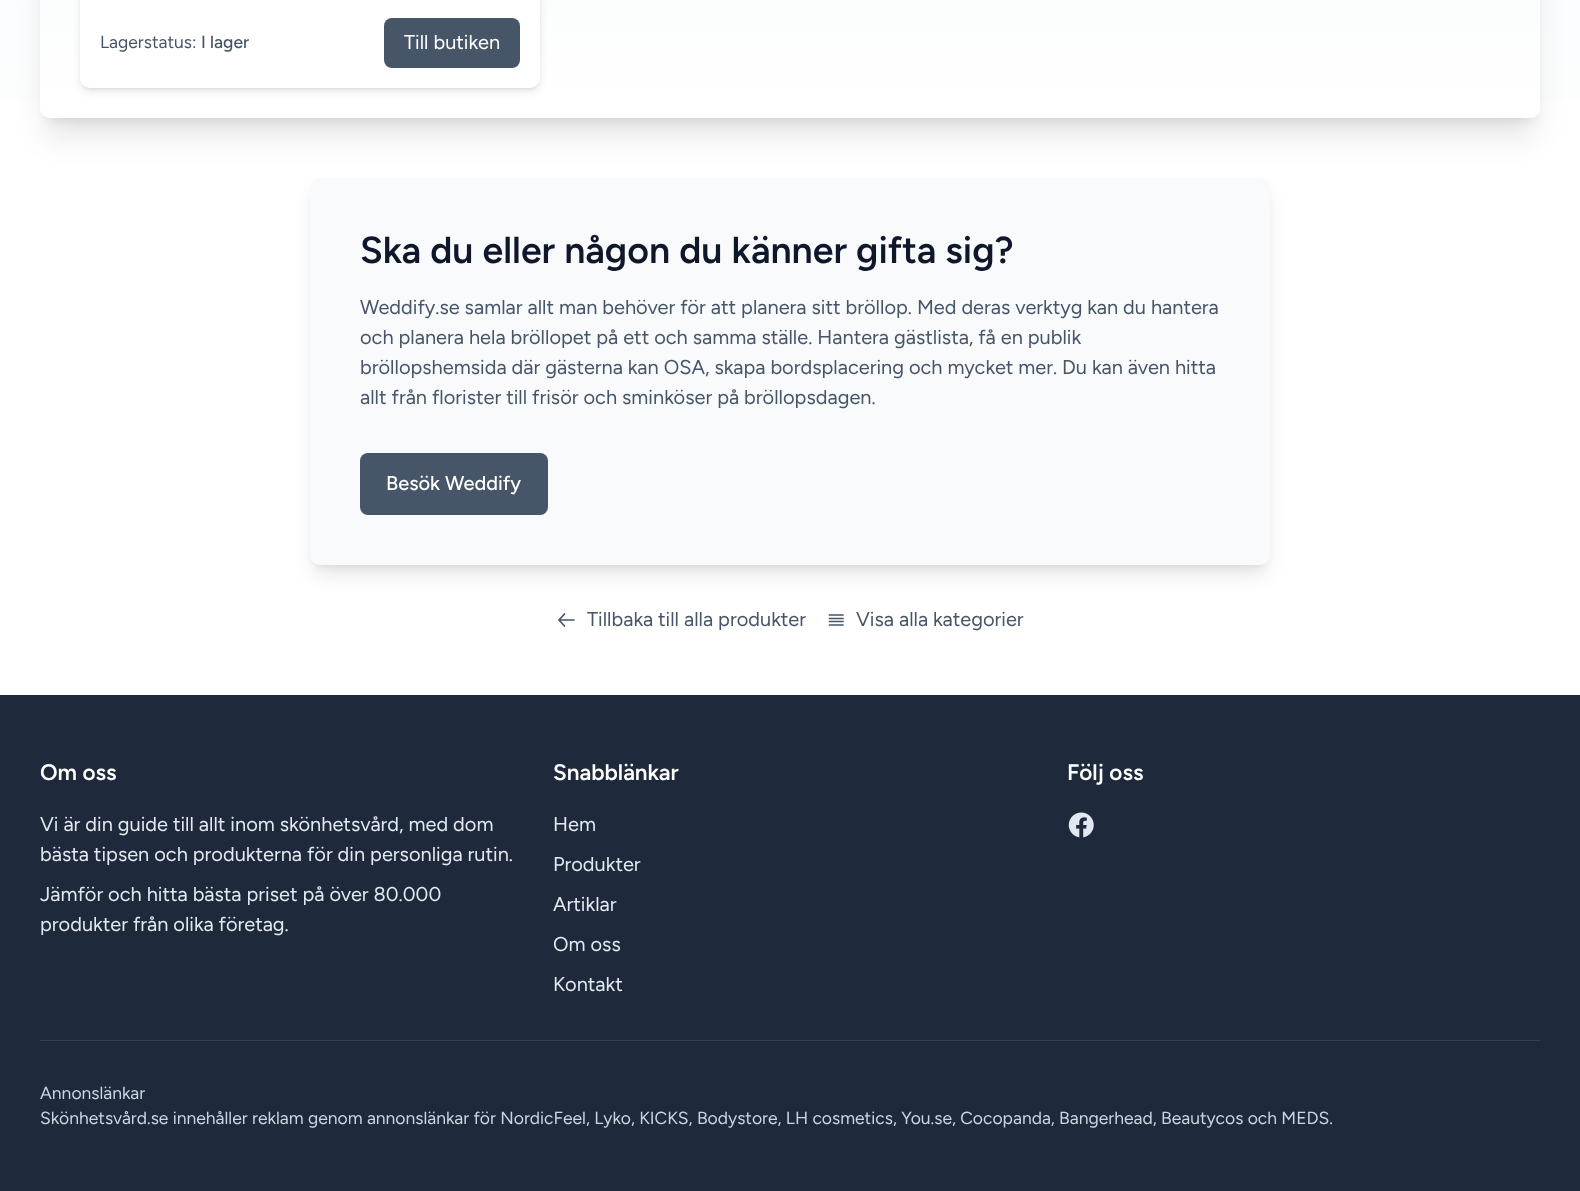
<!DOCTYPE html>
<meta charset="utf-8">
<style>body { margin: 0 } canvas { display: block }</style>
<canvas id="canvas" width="1580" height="1191"></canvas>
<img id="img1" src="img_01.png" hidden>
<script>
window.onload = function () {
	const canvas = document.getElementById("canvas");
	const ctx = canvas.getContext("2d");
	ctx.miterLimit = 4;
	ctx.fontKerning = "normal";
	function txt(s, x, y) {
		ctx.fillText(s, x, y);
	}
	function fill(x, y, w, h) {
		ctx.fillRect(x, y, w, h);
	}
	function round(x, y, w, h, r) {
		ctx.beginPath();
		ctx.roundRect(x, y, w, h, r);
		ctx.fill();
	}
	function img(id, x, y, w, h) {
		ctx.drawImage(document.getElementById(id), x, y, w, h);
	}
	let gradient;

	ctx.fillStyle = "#FFFFFF";
	fill(0, 0, 1580, 1191);
	gradient = ctx.createLinearGradient(790, -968, 790, 695);
	gradient.addColorStop(0, "#F8FAFC");
	gradient.addColorStop(1, "#FFFFFF");
	ctx.fillStyle = gradient;
	fill(0, 0, 1580, 101);
	ctx.fillStyle = "rgba(0, 0, 0, 0.1)";
	ctx.filter = "blur(6px)";
	ctx.beginPath();
	ctx.roundRect(48, -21, 1485, 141, 2.5);
	ctx.fill();
	ctx.filter = "none";
	ctx.filter = "blur(15.5px)";
	ctx.beginPath();
	ctx.roundRect(46, -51, 1488, 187, 4);
	ctx.fill();
	ctx.filter = "none";
	gradient = ctx.createLinearGradient(790, -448, 790, 118);
	gradient.addColorStop(0, "#F1F5F9");
	gradient.addColorStop(1, "#FFFFFF");
	ctx.fillStyle = gradient;
	ctx.beginPath();
	ctx.moveTo(40, -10);
	ctx.lineTo(1540, -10);
	ctx.lineTo(1540, 108);
	ctx.bezierCurveTo(1540, 113.5, 1535.5, 118, 1530, 118);
	ctx.lineTo(50, 118);
	ctx.bezierCurveTo(44.5, 118, 40, 113.5, 40, 108);
	ctx.closePath();
	ctx.fill();
	ctx.fillStyle = "rgba(0, 0, 0, 0.1)";
	ctx.filter = "blur(2.5px)";
	ctx.beginPath();
	ctx.roundRect(83, -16, 455, 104, 8);
	ctx.fill();
	ctx.filter = "none";
	ctx.filter = "blur(4px)";
	ctx.beginPath();
	ctx.roundRect(81, -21, 458, 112, 9);
	ctx.fill();
	ctx.filter = "none";
	ctx.fillStyle = "#FFFFFF";
	round(80, -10, 460, 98, 10);
	ctx.fillStyle = "#475569";
	round(384, 18, 136, 50, 8);
	ctx.fillStyle = "rgba(0, 0, 0, 0.1)";
	ctx.filter = "blur(4px)";
	ctx.beginPath();
	ctx.roundRect(315, 188, 950, 377, 5);
	ctx.fill();
	ctx.filter = "none";
	ctx.filter = "blur(9.5px)";
	ctx.beginPath();
	ctx.roundRect(314, 194, 952, 380, 6);
	ctx.fill();
	ctx.filter = "none";
	ctx.fillStyle = "#F8FAFC";
	round(310, 178, 960, 387, 10);
	ctx.fillStyle = "#475569";
	round(360, 453, 188, 62, 8);
	ctx.beginPath();
	ctx.moveTo(564.5, 626);
	ctx.lineTo(559, 620);
	ctx.moveTo(559, 620);
	ctx.lineTo(564.5, 614);
	ctx.moveTo(559, 620);
	ctx.lineTo(574, 620);
	ctx.strokeStyle = "#475569";
	ctx.lineWidth = 1.7;
	ctx.lineCap = "round";
	ctx.lineJoin = "round";
	ctx.stroke();
	ctx.beginPath();
	ctx.moveTo(829.5, 615);
	ctx.lineTo(843, 615);
	ctx.moveTo(829.5, 618.5);
	ctx.lineTo(843, 618.5);
	ctx.moveTo(829.5, 621.5);
	ctx.lineTo(843, 621.5);
	ctx.moveTo(829.5, 625);
	ctx.lineTo(843, 625);
	ctx.stroke();
	ctx.fillStyle = "#1E293B";
	fill(0, 695, 1580, 496);
	img("img1", 1068, 812, 26, 26);
	ctx.fillStyle = "#334155";
	fill(40, 1040, 1500, 1);
	ctx.font = "300 17.5px Figtree";
	ctx.fillStyle = "#475569";
	txt("Lagerstatus:", 100, 48);
	ctx.font = "300 17.5px 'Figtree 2'";
	txt("I lager", 201, 48);
	ctx.font = "300 20px Figtree";
	ctx.fillStyle = "#FFFFFF";
	txt("Till butiken", 404, 49);
	ctx.font = "600 37.5px Figtree";
	ctx.fillStyle = "#0F172A";
	txt("Ska du eller någon du känner gifta sig?", 360, 263);
	ctx.font = "300 20px Figtree";
	ctx.fillStyle = "#475569";
	txt("Weddify.se samlar allt man behöver för att planera sitt bröllop. Med deras verktyg kan du hantera", 360, 314);
	txt("och planera hela bröllopet på ett och samma ställe. Hantera gästlista, få en publik", 360, 344);
	txt("bröllopshemsida där gästerna kan OSA, skapa bordsplacering och mycket mer. Du kan även hitta", 360, 374);
	txt("allt från florister till frisör och sminköser på bröllopsdagen.", 360, 404);
	ctx.font = "300 20px 'Figtree 2'";
	ctx.fillStyle = "#FFFFFF";
	txt("Besök Weddify", 386, 490);
	ctx.font = "300 20px Figtree";
	ctx.fillStyle = "#475569";
	txt("Tillbaka till alla produkter", 587, 626);
	txt("Visa alla kategorier", 856, 626);
	ctx.font = "600 22.5px Figtree";
	ctx.fillStyle = "#FFFFFF";
	txt("Om oss", 40, 780);
	ctx.font = "300 20px Figtree";
	ctx.fillStyle = "#E2E8F0";
	txt("Vi är din guide till allt inom skönhetsvård, med dom", 40, 831);
	txt("bästa tipsen och produkterna för din personliga rutin.", 40, 861);
	txt("Jämför och hitta bästa priset på över 80.000", 40, 901);
	txt("produkter från olika företag.", 40, 931);
	ctx.font = "600 22.5px Figtree";
	ctx.fillStyle = "#FFFFFF";
	txt("Snabblänkar", 553, 780);
	ctx.font = "300 20px Figtree";
	ctx.fillStyle = "#E2E8F0";
	txt("Hem", 553, 831);
	txt("Produkter", 553, 871);
	txt("Artiklar", 553, 911);
	txt("Om oss", 553, 951);
	txt("Kontakt", 553, 991);
	ctx.font = "600 22.5px Figtree";
	ctx.fillStyle = "#FFFFFF";
	txt("Följ oss", 1067, 780);
	ctx.font = "300 17.5px Figtree";
	ctx.fillStyle = "#CBD5E1";
	txt("Annonslänkar", 40, 1099);
	txt("Skönhetsvård.se innehåller reklam genom annonslänkar för NordicFeel, Lyko, KICKS, Bodystore, LH cosmetics, You.se, Cocopanda, Bangerhead, Beautycos och MEDS.", 40, 1124);
};
</script>
